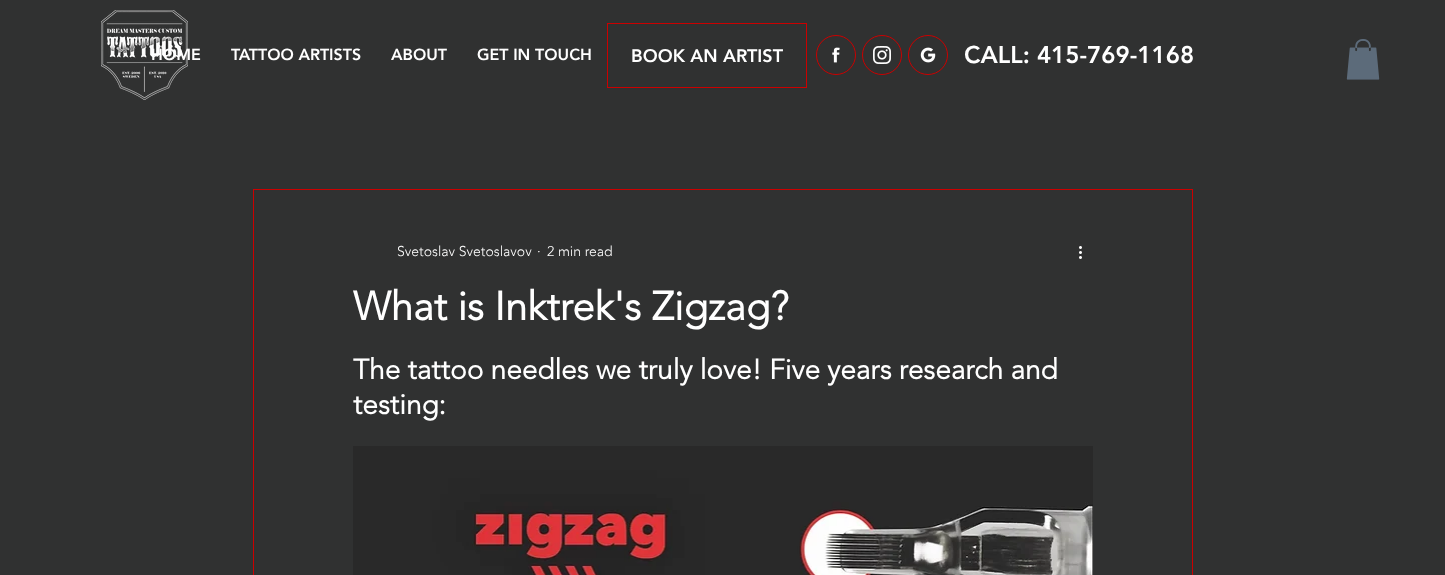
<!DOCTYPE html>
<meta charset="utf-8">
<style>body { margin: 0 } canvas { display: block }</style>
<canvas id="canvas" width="1445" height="575"></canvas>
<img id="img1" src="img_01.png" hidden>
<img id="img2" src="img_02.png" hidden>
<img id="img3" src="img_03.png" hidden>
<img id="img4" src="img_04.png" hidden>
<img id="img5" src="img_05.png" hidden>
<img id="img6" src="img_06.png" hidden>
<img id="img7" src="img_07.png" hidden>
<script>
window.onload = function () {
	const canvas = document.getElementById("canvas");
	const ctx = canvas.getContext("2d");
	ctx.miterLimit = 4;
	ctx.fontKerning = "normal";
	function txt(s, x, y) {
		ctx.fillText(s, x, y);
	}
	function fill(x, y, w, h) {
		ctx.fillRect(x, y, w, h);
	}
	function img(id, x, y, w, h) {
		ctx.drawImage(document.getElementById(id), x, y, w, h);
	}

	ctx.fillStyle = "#303131";
	fill(0, 0, 1445, 575);
	img("img1", 101, 10, 87, 90);
	ctx.strokeStyle = "#CC0000";
	ctx.strokeRect(607.5, 23.5, 199, 64);
	ctx.beginPath();
	ctx.arc(836, 55, 19.5, 0, Math.PI * 2);
	ctx.stroke();
	img("img2", 832, 47, 8, 16);
	ctx.beginPath();
	ctx.arc(882, 55, 19.5, 0, Math.PI * 2);
	ctx.stroke();
	img("img3", 873, 46, 18, 18);
	ctx.beginPath();
	ctx.arc(928, 55, 19.5, 0, Math.PI * 2);
	ctx.stroke();
	img("img4", 920, 47, 16, 16);
	img("img5", 1346, 39, 34, 41);
	ctx.strokeRect(253.5, 189.5, 939, 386);
	img("img6", 1079, 246, 3, 13);
	img("img7", 353, 446, 740, 129);
	ctx.font = "900 16px 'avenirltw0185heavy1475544'";
	ctx.fillStyle = "#FFFFFF";
	txt("HOME", 151, 60);
	txt("TATTOO ARTISTS", 231, 60);
	txt("ABOUT", 391, 60);
	txt("GET IN TOUCH", 477, 60);
	ctx.font = "900 18px 'avenirltw0185heavy1475544'";
	txt("BOOK AN ARTIST", 631, 62);
	ctx.font = "900 24px 'avenirltw0185heavy1475544'";
	txt("CALL: 415-769-1168", 964, 63);
	ctx.font = "300 14px 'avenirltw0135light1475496'";
	txt("Svetoslav Svetoslavov", 397, 256);
	txt("·", 537, 256);
	txt("2 min read", 547, 256);
	ctx.font = "bold 40px 'avenirltw0135light1475496'";
	txt("What is Inktrek's Zigzag?", 353, 320);
	ctx.font = "bold 28px 'avenirltw0135light1475496'";
	txt("The tattoo needles we truly love! Five years research and", 353, 379);
	txt("testing:", 353, 414);
};
</script>
